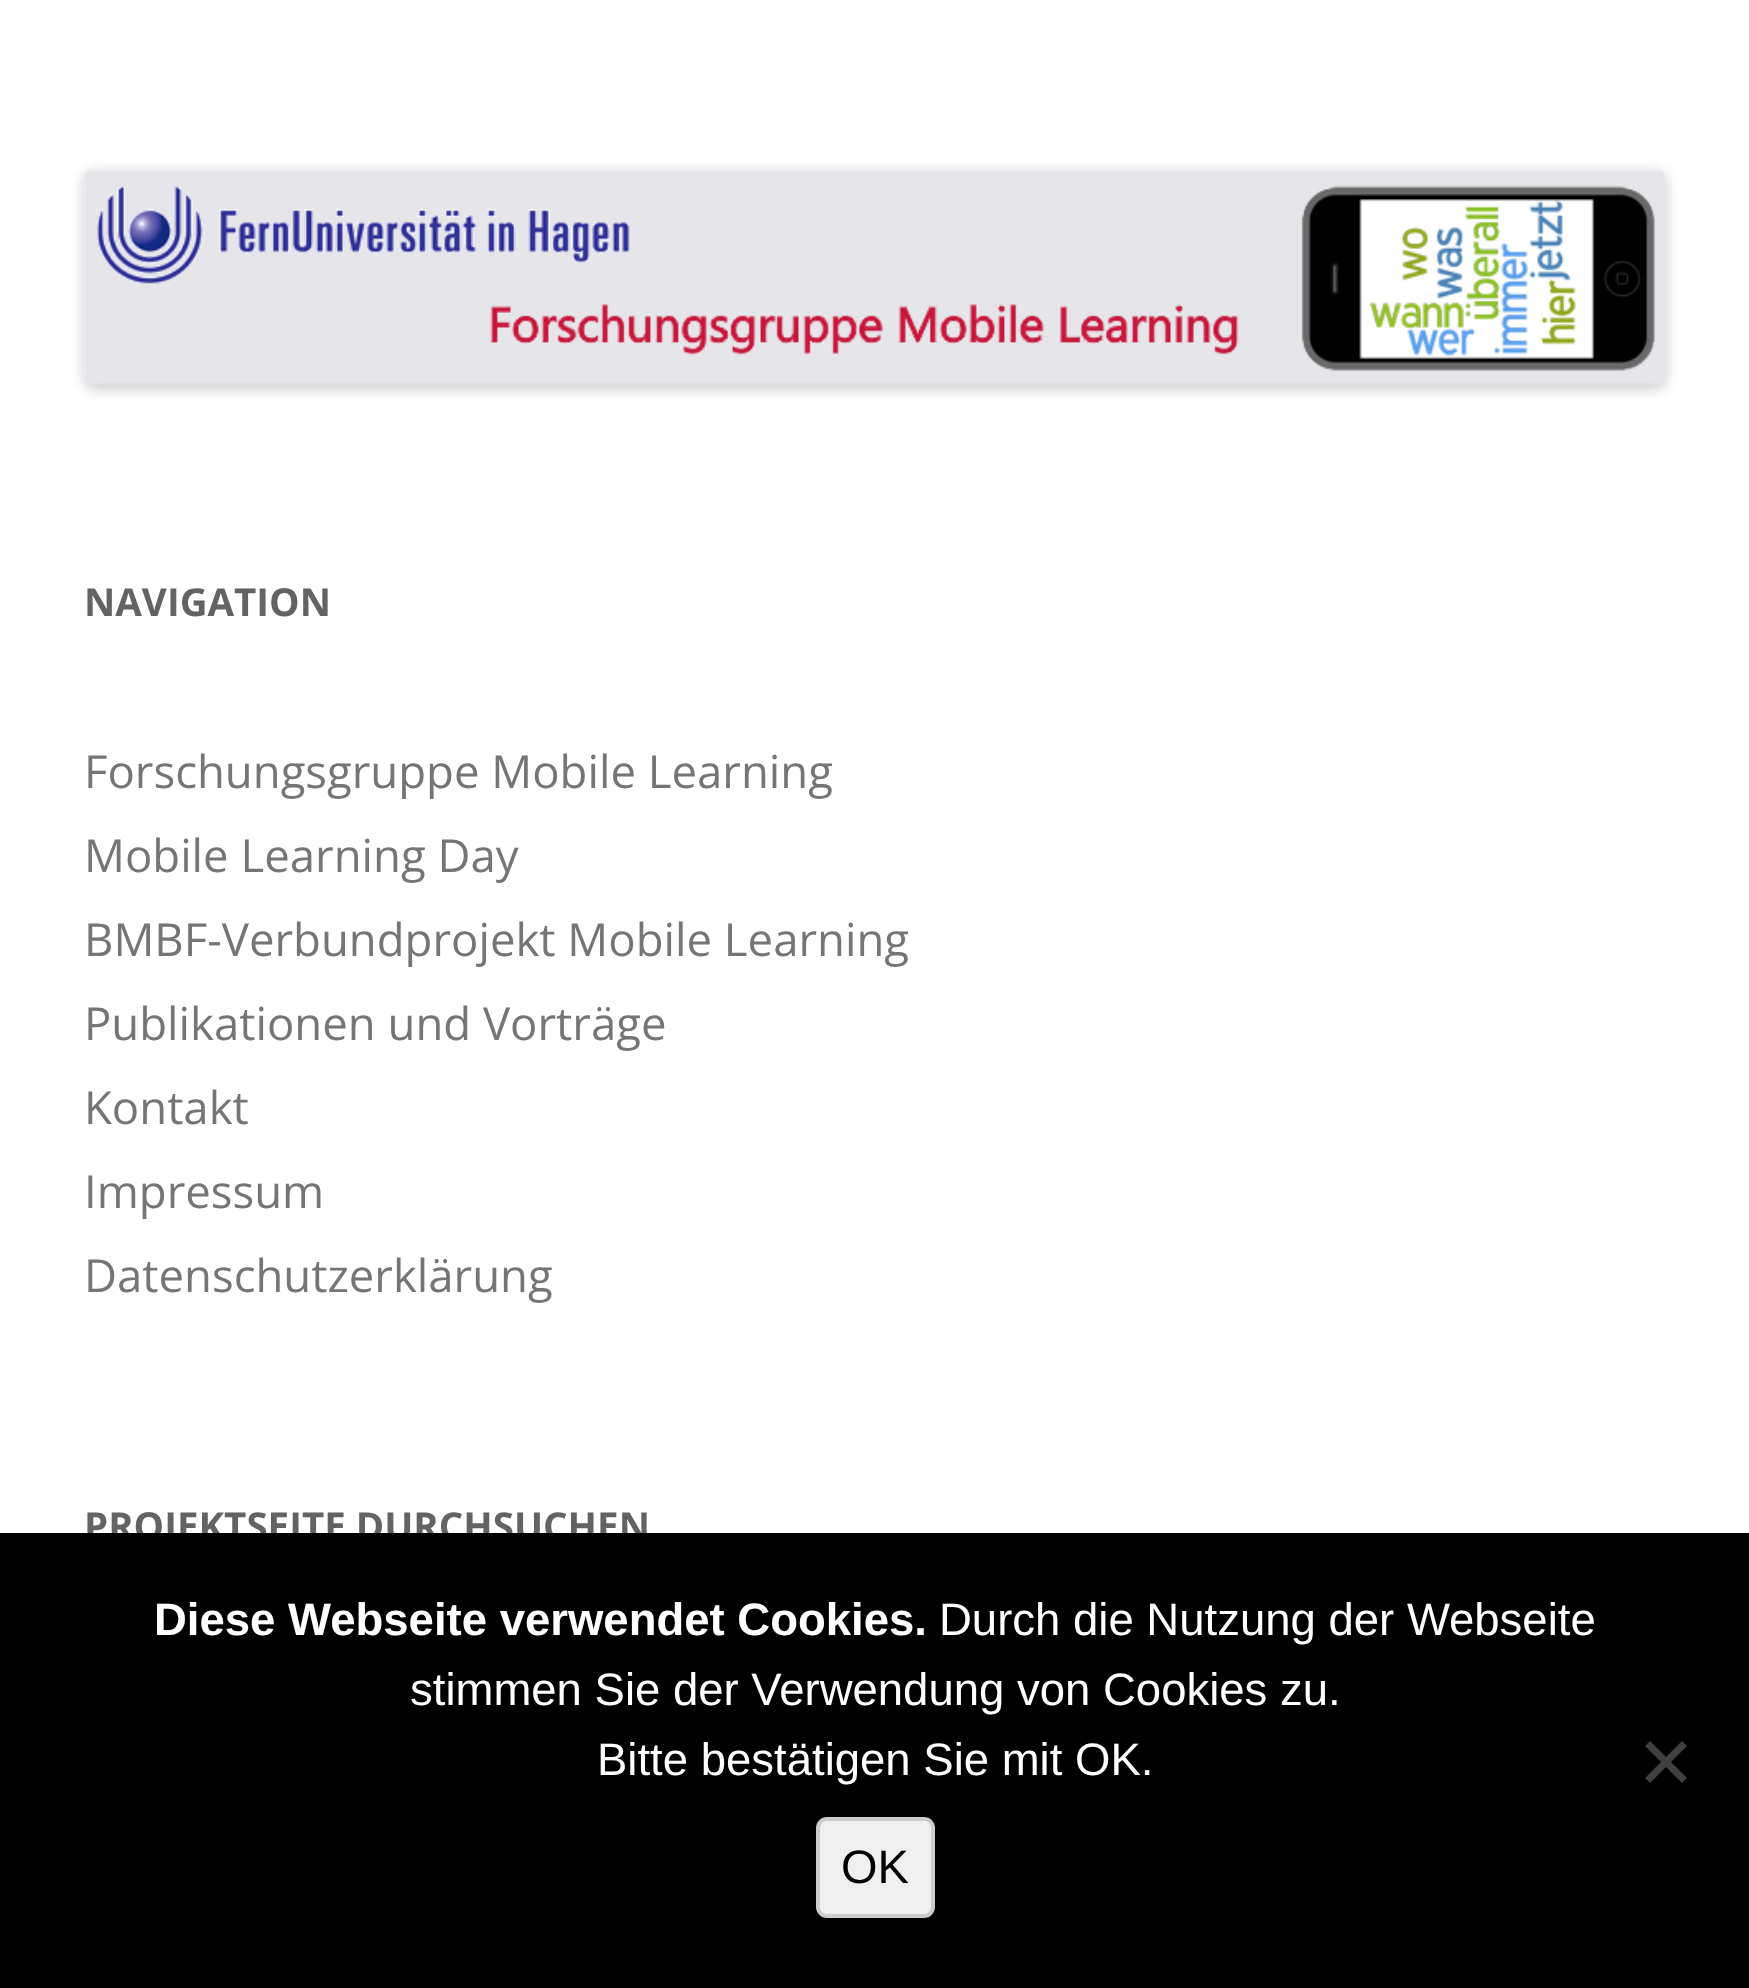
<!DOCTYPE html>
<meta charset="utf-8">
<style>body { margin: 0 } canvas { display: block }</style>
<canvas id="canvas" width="1749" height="1988"></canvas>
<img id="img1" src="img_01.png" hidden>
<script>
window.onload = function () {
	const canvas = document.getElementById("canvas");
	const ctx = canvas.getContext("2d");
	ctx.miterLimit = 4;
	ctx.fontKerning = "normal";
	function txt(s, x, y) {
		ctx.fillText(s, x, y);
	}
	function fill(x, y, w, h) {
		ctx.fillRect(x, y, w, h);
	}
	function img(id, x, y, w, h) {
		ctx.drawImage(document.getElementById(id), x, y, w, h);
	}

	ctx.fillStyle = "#FFFFFF";
	fill(0, 0, 1749, 1988);
	ctx.fillStyle = "rgba(0, 0, 0, 0.2)";
	ctx.filter = "blur(7px)";
	ctx.beginPath();
	ctx.roundRect(84, 172, 1582, 217, 11);
	ctx.fill();
	ctx.filter = "none";
	img("img1", 84, 168, 1582, 217);
	ctx.font = "bold 38.5px Open Sans";
	ctx.fillStyle = "#636363";
	txt("NAVIGATION", 84, 616);
	ctx.font = "45.5px Open Sans";
	ctx.fillStyle = "#757575";
	txt("Forschungsgruppe Mobile Learning", 84, 788);
	txt("Mobile Learning Day", 84, 872);
	txt("BMBF-Verbundprojekt Mobile Learning", 84, 956);
	txt("Publikationen und Vorträge", 84, 1040);
	txt("Kontakt", 84, 1124);
	txt("Impressum", 84, 1208);
	txt("Datenschutzerklärung", 84, 1292);
	ctx.font = "bold 38.5px Open Sans";
	ctx.fillStyle = "#636363";
	txt("PROJEKTSEITE DURCHSUCHEN", 84, 1540);
	ctx.fillStyle = "#000000";
	fill(0, 1533, 1749, 455);
	ctx.font = "bold 45.5px Liberation Sans";
	ctx.fillStyle = "#FFFFFF";
	txt("Diese Webseite verwendet Cookies.", 154, 1635);
	ctx.font = "45.5px Liberation Sans";
	txt("Durch die Nutzung der Webseite", 939, 1635);
	txt("stimmen Sie der Verwendung von Cookies zu.", 410, 1705);
	txt("Bitte bestätigen Sie mit OK.", 597, 1775);
	ctx.fillStyle = "#404040";
	ctx.beginPath();
	ctx.moveTo(1682, 1741);
	ctx.lineTo(1687, 1746);
	ctx.lineTo(1650, 1783);
	ctx.lineTo(1645, 1778);
	ctx.closePath();
	ctx.fill();
	ctx.beginPath();
	ctx.moveTo(1645, 1746);
	ctx.lineTo(1650, 1741);
	ctx.lineTo(1687, 1778);
	ctx.lineTo(1682, 1783);
	ctx.closePath();
	ctx.fill();
	ctx.fillStyle = "#EFEFEF";
	ctx.beginPath();
	ctx.roundRect(818, 1819, 115, 97, 9);
	ctx.fill();
	ctx.strokeStyle = "#CCCCCC";
	ctx.lineWidth = 4;
	ctx.stroke();
	ctx.font = "47px Liberation Sans";
	ctx.fillStyle = "#000000";
	txt("OK", 841, 1883);
};
</script>
